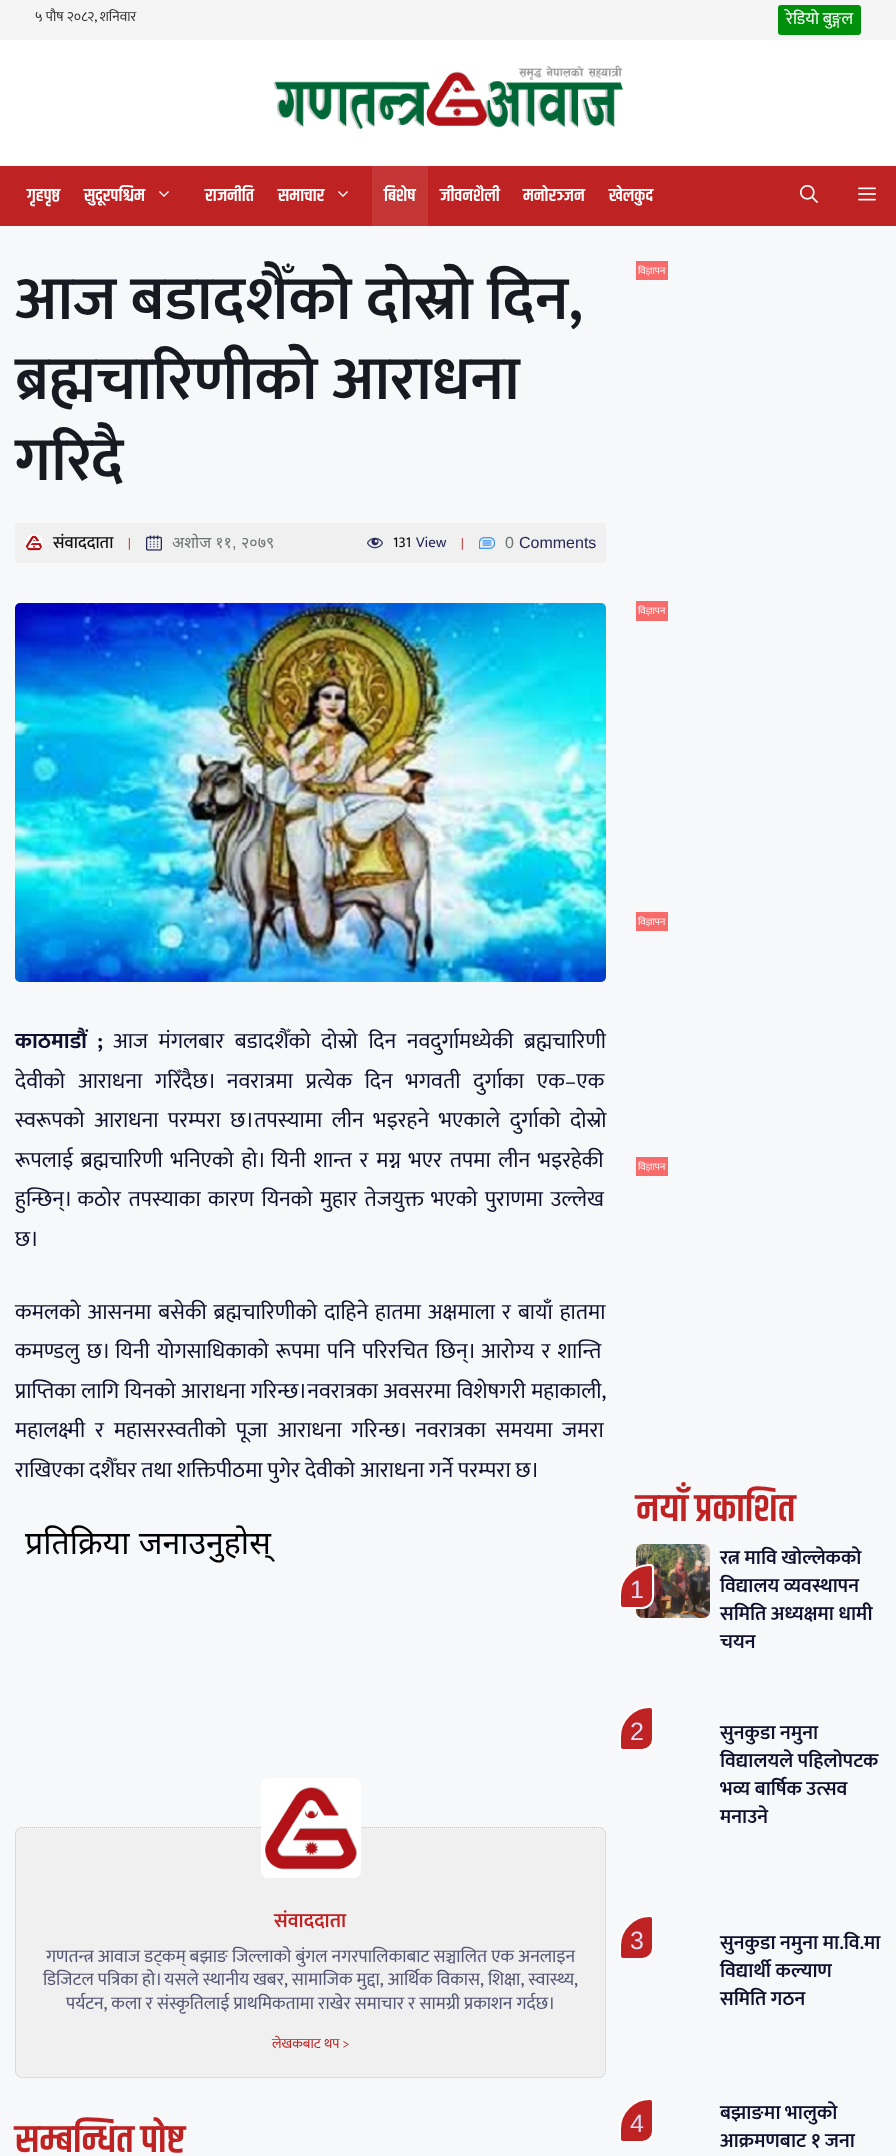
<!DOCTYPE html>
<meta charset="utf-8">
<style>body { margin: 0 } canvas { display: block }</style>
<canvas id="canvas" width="896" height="2156"></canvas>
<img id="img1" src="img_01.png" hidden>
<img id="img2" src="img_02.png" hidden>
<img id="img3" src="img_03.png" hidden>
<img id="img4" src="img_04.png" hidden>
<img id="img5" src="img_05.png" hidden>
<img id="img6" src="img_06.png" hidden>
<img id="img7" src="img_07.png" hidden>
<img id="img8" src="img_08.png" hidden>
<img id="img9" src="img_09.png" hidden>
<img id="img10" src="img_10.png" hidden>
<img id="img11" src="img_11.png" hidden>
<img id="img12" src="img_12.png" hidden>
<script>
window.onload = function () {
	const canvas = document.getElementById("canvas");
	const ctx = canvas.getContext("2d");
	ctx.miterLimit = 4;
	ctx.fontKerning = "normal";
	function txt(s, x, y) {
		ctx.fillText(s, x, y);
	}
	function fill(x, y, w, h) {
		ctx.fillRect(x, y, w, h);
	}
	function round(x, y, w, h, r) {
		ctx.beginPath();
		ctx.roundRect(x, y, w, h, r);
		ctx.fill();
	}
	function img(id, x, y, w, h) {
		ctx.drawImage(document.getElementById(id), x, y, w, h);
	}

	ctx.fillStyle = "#F7F8F9";
	fill(0, 0, 896, 2156);
	ctx.fillStyle = "#F5F5F5";
	fill(0, 0, 896, 40);
	img("img1", 35, 8, 102, 15);
	ctx.fillStyle = "#00900C";
	round(778, 5, 83, 30, 3);
	ctx.fillStyle = "#FFFFFF";
	fill(0, 40, 896, 126);
	img("img2", 273, 65, 350, 65);
	ctx.fillStyle = "#BF2222";
	fill(0, 166, 896, 60);
	img("img3", 159, 191, 10, 6);
	img("img3", 338, 191, 10, 6);
	ctx.fillStyle = "#C43636";
	fill(372, 166, 56, 60);
	img("img4", 800, 185, 18, 18);
	img("img5", 858, 187, 18, 14);
	ctx.fillStyle = "#F0F0F0";
	round(15, 523, 591, 40, 3);
	img("img6", 25, 534, 18, 18);
	img("img7", 146, 535, 16, 16);
	img("img8", 367, 537, 16, 12);
	img("img9", 479, 537, 16, 12);
	img("img10", 15, 603, 591, 379);
	round(15, 1827, 591, 251, 7);
	ctx.beginPath();
	ctx.moveTo(22, 1827.5);
	ctx.lineTo(599, 1827.5);
	ctx.bezierCurveTo(602.5, 1827.5, 605.5, 1830.5, 605.5, 1834);
	ctx.lineTo(605.5, 2071);
	ctx.bezierCurveTo(605.5, 2074.5, 602.5, 2077.5, 599, 2077.5);
	ctx.lineTo(22, 2077.5);
	ctx.bezierCurveTo(18.5, 2077.5, 15.5, 2074.5, 15.5, 2071);
	ctx.lineTo(15.5, 1834);
	ctx.bezierCurveTo(15.5, 1830.5, 18.5, 1827.5, 22, 1827.5);
	ctx.closePath();
	ctx.strokeStyle = "#C6C6C6";
	ctx.setLineDash([1, 1]);
	ctx.stroke();
	img("img11", 261, 1778, 100, 100);
	ctx.fillStyle = "#F76B6B";
	fill(636, 261, 32, 19);
	fill(636, 601, 32, 20);
	fill(636, 912, 32, 19);
	fill(636, 1157, 32, 19);
	img("img12", 636, 1544, 74, 74);
	ctx.fillStyle = "#BF2222";
	ctx.beginPath();
	ctx.roundRect(620, 1565, 33, 43, [30, 3, 11, 3]);
	ctx.fill();
	ctx.strokeStyle = "#FFFFFF";
	ctx.lineWidth = 2;
	ctx.setLineDash([]);
	ctx.stroke();
	ctx.beginPath();
	ctx.roundRect(620, 1707, 33, 43, [30, 3, 11, 3]);
	ctx.fill();
	ctx.stroke();
	ctx.beginPath();
	ctx.roundRect(620, 1916, 33, 43, [30, 3, 11, 3]);
	ctx.fill();
	ctx.stroke();
	ctx.beginPath();
	ctx.roundRect(620, 2099, 33, 43, [30, 3, 11, 3]);
	ctx.fill();
	ctx.stroke();
	ctx.font = "17px Mukta";
	ctx.fillStyle = "#FFFFFF";
	txt("रेडियाे बुङ्गल", 786, 24);
	ctx.font = "600 18px Khand";
	txt("गृहपृष्ठ", 27, 201);
	txt("सुदूरपश्चिम", 84, 201);
	txt("राजनीति", 205, 201);
	txt("समाचार", 278, 201);
	txt("बिशेष", 384, 201);
	txt("जीवनशैली", 440, 201);
	txt("मनाेरञ्जन", 523, 201);
	txt("खेलकुद", 609, 201);
	ctx.font = "600 62px Mukta";
	ctx.fillStyle = "#171B21";
	txt("आज बडादशैँको दोस्रो दिन,", 15, 319);
	txt("ब्रह्मचारिणीको आराधना", 15, 399);
	txt("गरिदै", 15, 480);
	ctx.font = "500 17px Mukta";
	ctx.fillStyle = "#0F0F0F";
	txt("संवाददाता", 53, 548);
	ctx.font = "12px Mukta";
	ctx.fillStyle = "#BF2222";
	txt("|", 128, 547);
	ctx.font = "16px Noto Sans";
	ctx.fillStyle = "#6D7474";
	txt("अशोज ११", 172, 548);
	ctx.font = "16px Liberation Sans";
	txt(",", 232, 548);
	ctx.font = "16px Noto Sans";
	txt("२०७९", 241, 548);
	ctx.font = "15px Mukta";
	ctx.fillStyle = "#090909";
	txt("131", 393, 547);
	ctx.fillStyle = "#262657";
	txt("View", 416, 547);
	ctx.font = "12px Mukta";
	ctx.fillStyle = "#BF2222";
	txt("|", 461, 547);
	ctx.font = "16px Liberation Sans";
	ctx.fillStyle = "#6D7474";
	txt("0", 505, 548);
	ctx.fillStyle = "#262657";
	txt("Comments", 519, 548);
	ctx.wordSpacing = "5.75px";
	ctx.font = "bold 22px Mukta";
	ctx.fillStyle = "#10102E";
	txt("काठमाडौं ;", 15, 1048);
	ctx.font = "22px Mukta";
	txt("आज मंगलबार बडादशैँको दोस्रो दिन नवदुर्गामध्येकी ब्रह्मचारिणी", 113, 1048);
	ctx.wordSpacing = "8px";
	txt("देवीको आराधना गरिँदैछ। नवरात्रमा प्रत्येक दिन भगवती दुर्गाका एक–एक", 15, 1088);
	ctx.wordSpacing = "4.75px";
	txt("स्वरूपको आराधना परम्परा छ।तपस्यामा लीन भइरहने भएकाले दुर्गाको दोस्रो", 15, 1127);
	ctx.wordSpacing = "2.75px";
	txt("रूपलाई ब्रह्मचारिणी भनिएको हो। यिनी शान्त र मग्न भएर तपमा लीन भइरहेकी", 15, 1167);
	ctx.wordSpacing = "2.5px";
	txt("हुन्छिन्। कठोर तपस्याका कारण यिनको मुहार तेजयुक्त भएको पुराणमा उल्लेख", 15, 1206);
	ctx.wordSpacing = "0px";
	txt("छ।", 15, 1246);
	ctx.wordSpacing = "2px";
	txt("कमलको आसनमा बसेकी ब्रह्मचारिणीको दाहिने हातमा अक्षमाला र बायाँ हातमा", 15, 1319);
	ctx.wordSpacing = "2.25px";
	txt("कमण्डलु छ। यिनी योगसाधिकाको रूपमा पनि परिरचित छिन्। आरोग्य र शान्ति", 15, 1358);
	ctx.wordSpacing = "0.5px";
	txt("प्राप्तिका लागि यिनको आराधना गरिन्छ।नवरात्रका अवसरमा विशेषगरी महाकाली,", 15, 1398);
	ctx.wordSpacing = "5px";
	txt("महालक्ष्मी र महासरस्वतीको पूजा आराधना गरिन्छ। नवरात्रका समयमा जमरा", 15, 1437);
	ctx.wordSpacing = "0px";
	txt("राखिएका दशैँघर तथा शक्तिपीठमा पुगेर देवीको आराधना गर्ने परम्परा छ।", 15, 1477);
	ctx.wordSpacing = "1px";
	ctx.font = "32px Noto Sans";
	ctx.fillStyle = "#000000";
	txt("प्रतिक्रिया जनाउनुहाेस्", 25, 1554);
	ctx.wordSpacing = "0px";
	ctx.font = "600 20px Mukta";
	ctx.fillStyle = "#BF2222";
	txt("संवाददाता", 274, 1927);
	ctx.font = "18px Mukta";
	ctx.fillStyle = "#545472";
	txt("गणतन्त्र आवाज डट्कम् बझाङ जिल्लाको बुंगल नगरपालिकाबाट सञ्चालित एक अनलाइन", 46, 1962);
	txt("डिजिटल पत्रिका हो। यसले स्थानीय खबर, सामाजिक मुद्दा, आर्थिक विकास, शिक्षा, स्वास्थ्य,", 43, 1985);
	txt("पर्यटन, कला र संस्कृतिलाई प्राथमिकतामा राखेर समाचार र सामग्री प्रकाशन गर्दछ।", 66, 2009);
	ctx.font = "14px Mukta";
	ctx.fillStyle = "#BF2222";
	txt("लेखकबाट थप >", 272, 2048);
	ctx.font = "600 39px Khand";
	txt("सम्बन्धित पाेष्ट", 15, 2152);
	ctx.font = "10px Mukta";
	ctx.fillStyle = "#FFFFFF";
	txt("विज्ञापन", 638, 274);
	txt("विज्ञापन", 638, 614);
	txt("विज्ञापन", 638, 925);
	txt("विज्ञापन", 638, 1170);
	ctx.font = "600 39px Khand";
	ctx.fillStyle = "#BF2222";
	txt("नयाँ प्रकाशित", 636, 1521);
	ctx.font = "25px Liberation Sans";
	ctx.fillStyle = "#DDDFF8";
	txt("1", 630, 1598);
	ctx.font = "600 20px Mukta";
	ctx.fillStyle = "#10102E";
	txt("रत्न मावि खोल्लेकको", 720, 1564);
	txt("विद्यालय व्यवस्थापन", 720, 1592);
	txt("समिति अध्यक्षमा धामी", 720, 1620);
	txt("चयन", 720, 1648);
	ctx.font = "25px Liberation Sans";
	ctx.fillStyle = "#DDDFF8";
	txt("2", 630, 1740);
	ctx.font = "600 20px Mukta";
	ctx.fillStyle = "#10102E";
	txt("सुनकुडा नमुना", 720, 1739);
	txt("विद्यालयले पहिलोपटक", 720, 1767);
	txt("भव्य बार्षिक उत्सव", 720, 1795);
	txt("मनाउने", 720, 1823);
	ctx.font = "25px Liberation Sans";
	ctx.fillStyle = "#DDDFF8";
	txt("3", 630, 1949);
	ctx.font = "600 20px Mukta";
	ctx.fillStyle = "#10102E";
	txt("सुनकुडा नमुना मा.वि.मा", 720, 1949);
	txt("विद्यार्थी कल्याण", 720, 1977);
	txt("समिति गठन", 720, 2005);
	ctx.font = "25px Liberation Sans";
	ctx.fillStyle = "#DDDFF8";
	txt("4", 630, 2132);
	ctx.font = "600 20px Mukta";
	ctx.fillStyle = "#10102E";
	txt("बझाङमा भालुको", 720, 2119);
	txt("आक्रमणबाट १ जना", 720, 2147);
};
</script>
